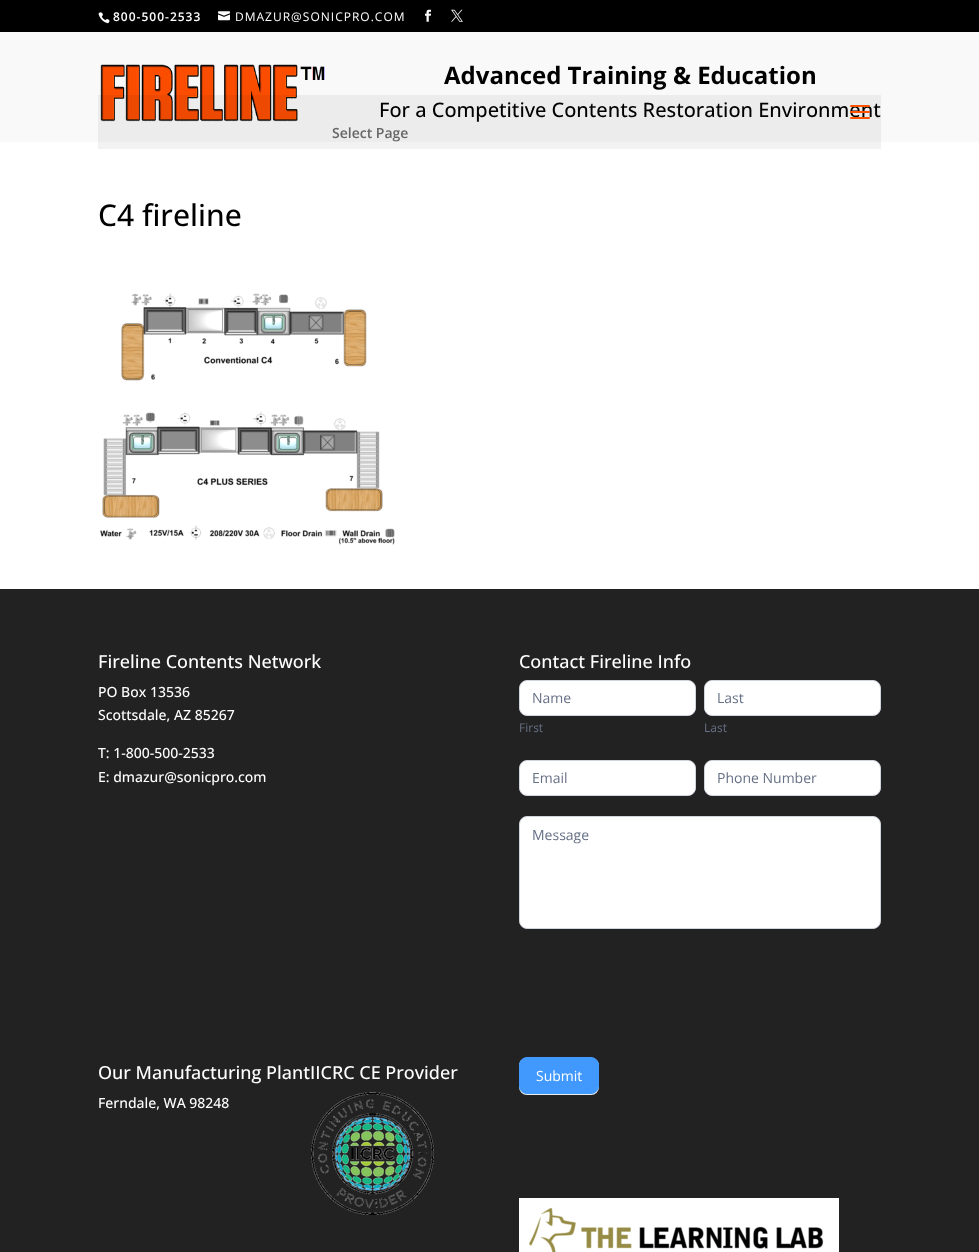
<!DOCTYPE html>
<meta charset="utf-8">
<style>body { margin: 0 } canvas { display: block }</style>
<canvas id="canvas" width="979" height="1252"></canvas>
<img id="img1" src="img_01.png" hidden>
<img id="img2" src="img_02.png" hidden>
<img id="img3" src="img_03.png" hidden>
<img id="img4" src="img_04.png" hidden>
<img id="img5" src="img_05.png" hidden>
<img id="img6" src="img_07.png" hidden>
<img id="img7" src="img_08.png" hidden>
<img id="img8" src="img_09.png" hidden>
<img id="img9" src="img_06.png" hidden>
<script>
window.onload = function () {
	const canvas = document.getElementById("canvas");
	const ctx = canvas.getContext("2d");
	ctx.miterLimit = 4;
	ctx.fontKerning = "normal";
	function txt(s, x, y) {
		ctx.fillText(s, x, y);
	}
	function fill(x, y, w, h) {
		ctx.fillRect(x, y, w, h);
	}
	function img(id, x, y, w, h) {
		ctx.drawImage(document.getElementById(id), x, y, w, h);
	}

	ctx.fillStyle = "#FFFFFF";
	fill(0, 0, 979, 1252);
	ctx.fillStyle = "#000000";
	fill(0, 0, 979, 32);
	img("img1", 98, 12, 12, 12);
	img("img2", 218, 11, 12, 10);
	img("img3", 425, 9, 6, 13);
	img("img4", 451, 9, 12, 13);
	ctx.fillStyle = "#F9F9F9";
	fill(0, 32, 979, 110);
	img("img5", 100, 64, 225, 58);
	ctx.fillStyle = "rgba(0, 0, 0, 0.05)";
	fill(98, 95, 783, 54);
	img("img6", 100, 293, 295, 252);
	ctx.fillStyle = "#222222";
	fill(0, 589, 979, 663);
	img("img7", 311, 1092, 123, 123);
	ctx.fillStyle = "#FFFFFF";
	ctx.beginPath();
	ctx.roundRect(519.5, 680.5, 176, 35, 7.5);
	ctx.fill();
	ctx.strokeStyle = "#D0D5DD";
	ctx.stroke();
	ctx.beginPath();
	ctx.roundRect(704.5, 680.5, 176, 35, 7.5);
	ctx.fill();
	ctx.stroke();
	ctx.beginPath();
	ctx.roundRect(519.5, 760.5, 176, 35, 7.5);
	ctx.fill();
	ctx.stroke();
	ctx.beginPath();
	ctx.roundRect(704.5, 760.5, 176, 35, 7.5);
	ctx.fill();
	ctx.stroke();
	ctx.beginPath();
	ctx.roundRect(519.5, 816.5, 361, 112, 7.5);
	ctx.fill();
	ctx.stroke();
	ctx.fillStyle = "#EEEEEE";
	ctx.filter = "blur(0.5px)";
	ctx.beginPath();
	ctx.roundRect(519, 1058, 80, 37, 8);
	ctx.fill();
	ctx.filter = "none";
	ctx.fillStyle = "#4199FD";
	ctx.beginPath();
	ctx.roundRect(519.5, 1057.5, 79, 36, 7.5);
	ctx.fill();
	ctx.strokeStyle = "#4199FD";
	ctx.stroke();
	ctx.fillStyle = "#FFFFFF";
	fill(519, 1198, 320, 54);
	img("img8", 529, 1208, 295, 44);
	ctx.letterSpacing = "1px";
	ctx.font = "600 12px Open Sans";
	txt("800-500-2533", 113, 21);
	ctx.font = "12px Open Sans";
	txt("DMAZUR@SONICPRO.COM", 235, 21);
	ctx.letterSpacing = "0px";
	ctx.font = "bold 24px Open Sans";
	ctx.fillStyle = "#000000";
	txt("Advanced Training & Education", 444, 84);
	ctx.font = "500 20px Open Sans";
	txt("For a Competitive Contents Restoration Environment", 379, 117);
	img("img9", 850, 105, 20, 14);
	ctx.font = "600 14px Open Sans";
	ctx.fillStyle = "#666666";
	txt("Select Page", 332, 138);
	ctx.font = "500 30px Open Sans";
	ctx.fillStyle = "#000000";
	txt("C4 fireline", 98, 226);
	ctx.font = "500 18px Open Sans";
	ctx.fillStyle = "#FFFFFF";
	txt("Fireline Contents Network", 98, 668);
	ctx.font = "500 14px Open Sans";
	txt("PO Box 13536", 98, 697);
	txt("Scottsdale, AZ 85267", 98, 720);
	txt("T: 1-800-500-2533", 98, 758);
	txt("E: dmazur@sonicpro.com", 98, 782);
	ctx.font = "500 18px Open Sans";
	txt("Our Manufacturing PlantIICRC CE Provider", 98, 1079);
	ctx.font = "500 14px Open Sans";
	txt("Ferndale, WA 98248", 98, 1108);
	ctx.font = "500 18px Open Sans";
	txt("Contact Fireline Info", 519, 668);
	ctx.font = "14px Open Sans";
	ctx.fillStyle = "#667085";
	txt("Name", 532, 703);
	ctx.font = "12px Open Sans";
	txt("First", 519, 732);
	ctx.font = "14px Open Sans";
	txt("Last", 717, 703);
	ctx.font = "12px Open Sans";
	txt("Last", 704, 732);
	ctx.font = "14px Open Sans";
	txt("Email", 532, 783);
	txt("Phone Number", 717, 783);
	txt("Message", 532, 840);
	ctx.fillStyle = "#FFFFFF";
	txt("Submit", 536, 1081);
};
</script>
